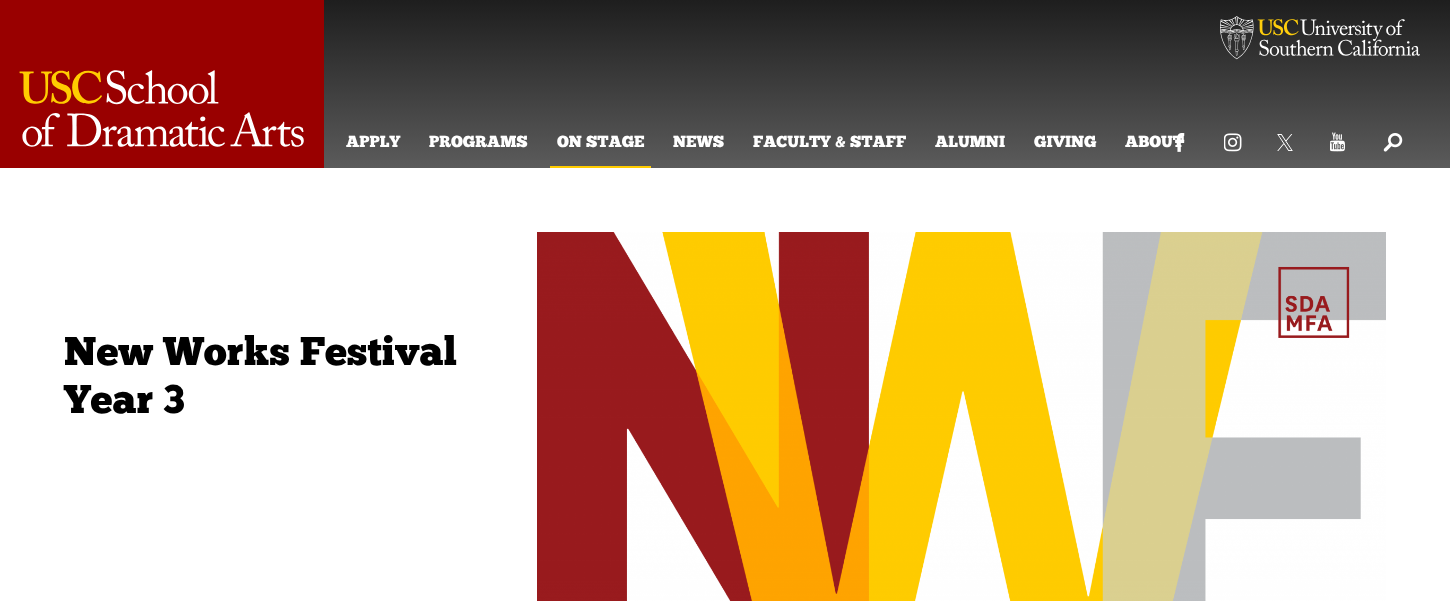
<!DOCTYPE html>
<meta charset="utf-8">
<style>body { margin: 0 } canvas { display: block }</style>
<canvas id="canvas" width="1450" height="601"></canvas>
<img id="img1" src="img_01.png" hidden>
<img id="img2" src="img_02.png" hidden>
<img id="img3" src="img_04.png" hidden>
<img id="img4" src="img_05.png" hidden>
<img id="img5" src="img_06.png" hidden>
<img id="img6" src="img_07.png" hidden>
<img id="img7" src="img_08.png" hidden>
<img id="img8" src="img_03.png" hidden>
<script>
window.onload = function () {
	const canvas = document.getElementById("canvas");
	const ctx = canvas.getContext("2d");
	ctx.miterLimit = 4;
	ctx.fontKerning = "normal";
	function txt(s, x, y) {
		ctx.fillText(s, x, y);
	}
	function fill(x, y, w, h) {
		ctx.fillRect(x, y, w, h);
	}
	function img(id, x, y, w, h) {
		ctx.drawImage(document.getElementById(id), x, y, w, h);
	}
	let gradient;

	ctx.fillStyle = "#FFFFFF";
	fill(0, 0, 1450, 601);
	ctx.fillStyle = "#990000";
	fill(0, 0, 324, 168);
	img("img1", 19, 70, 285, 77);
	gradient = ctx.createLinearGradient(725, 0, 725, 168);
	gradient.addColorStop(0, "#1E1E1E");
	gradient.addColorStop(1, "#5B5B5B");
	ctx.fillStyle = gradient;
	fill(324, 0, 1126, 168);
	img("img2", 1220, 16, 200, 44);
	ctx.fillStyle = "#FFCC00";
	fill(550, 166, 101, 2);
	img("img3", 1224, 133, 18, 19);
	img("img4", 1277, 134, 16, 17);
	img("img5", 1330, 132, 15, 20);
	img("img6", 1383, 133, 20, 19);
	img("img7", 537, 232, 849, 369);
	ctx.font = "16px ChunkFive";
	ctx.fillStyle = "#FFFFFF";
	txt("APPLY", 346, 147);
	txt("PROGRAMS", 429, 147);
	txt("ON STAGE", 557, 147);
	txt("NEWS", 673, 147);
	txt("FACULTY & STAFF", 753, 147);
	txt("ALUMNI", 935, 147);
	txt("GIVING", 1034, 147);
	txt("ABOUT", 1125, 147);
	img("img8", 1175, 133, 10, 19);
	ctx.font = "40px ChunkFive";
	ctx.fillStyle = "#000000";
	txt("New Works Festival", 64, 365);
	txt("Year 3", 64, 413);
};
</script>
